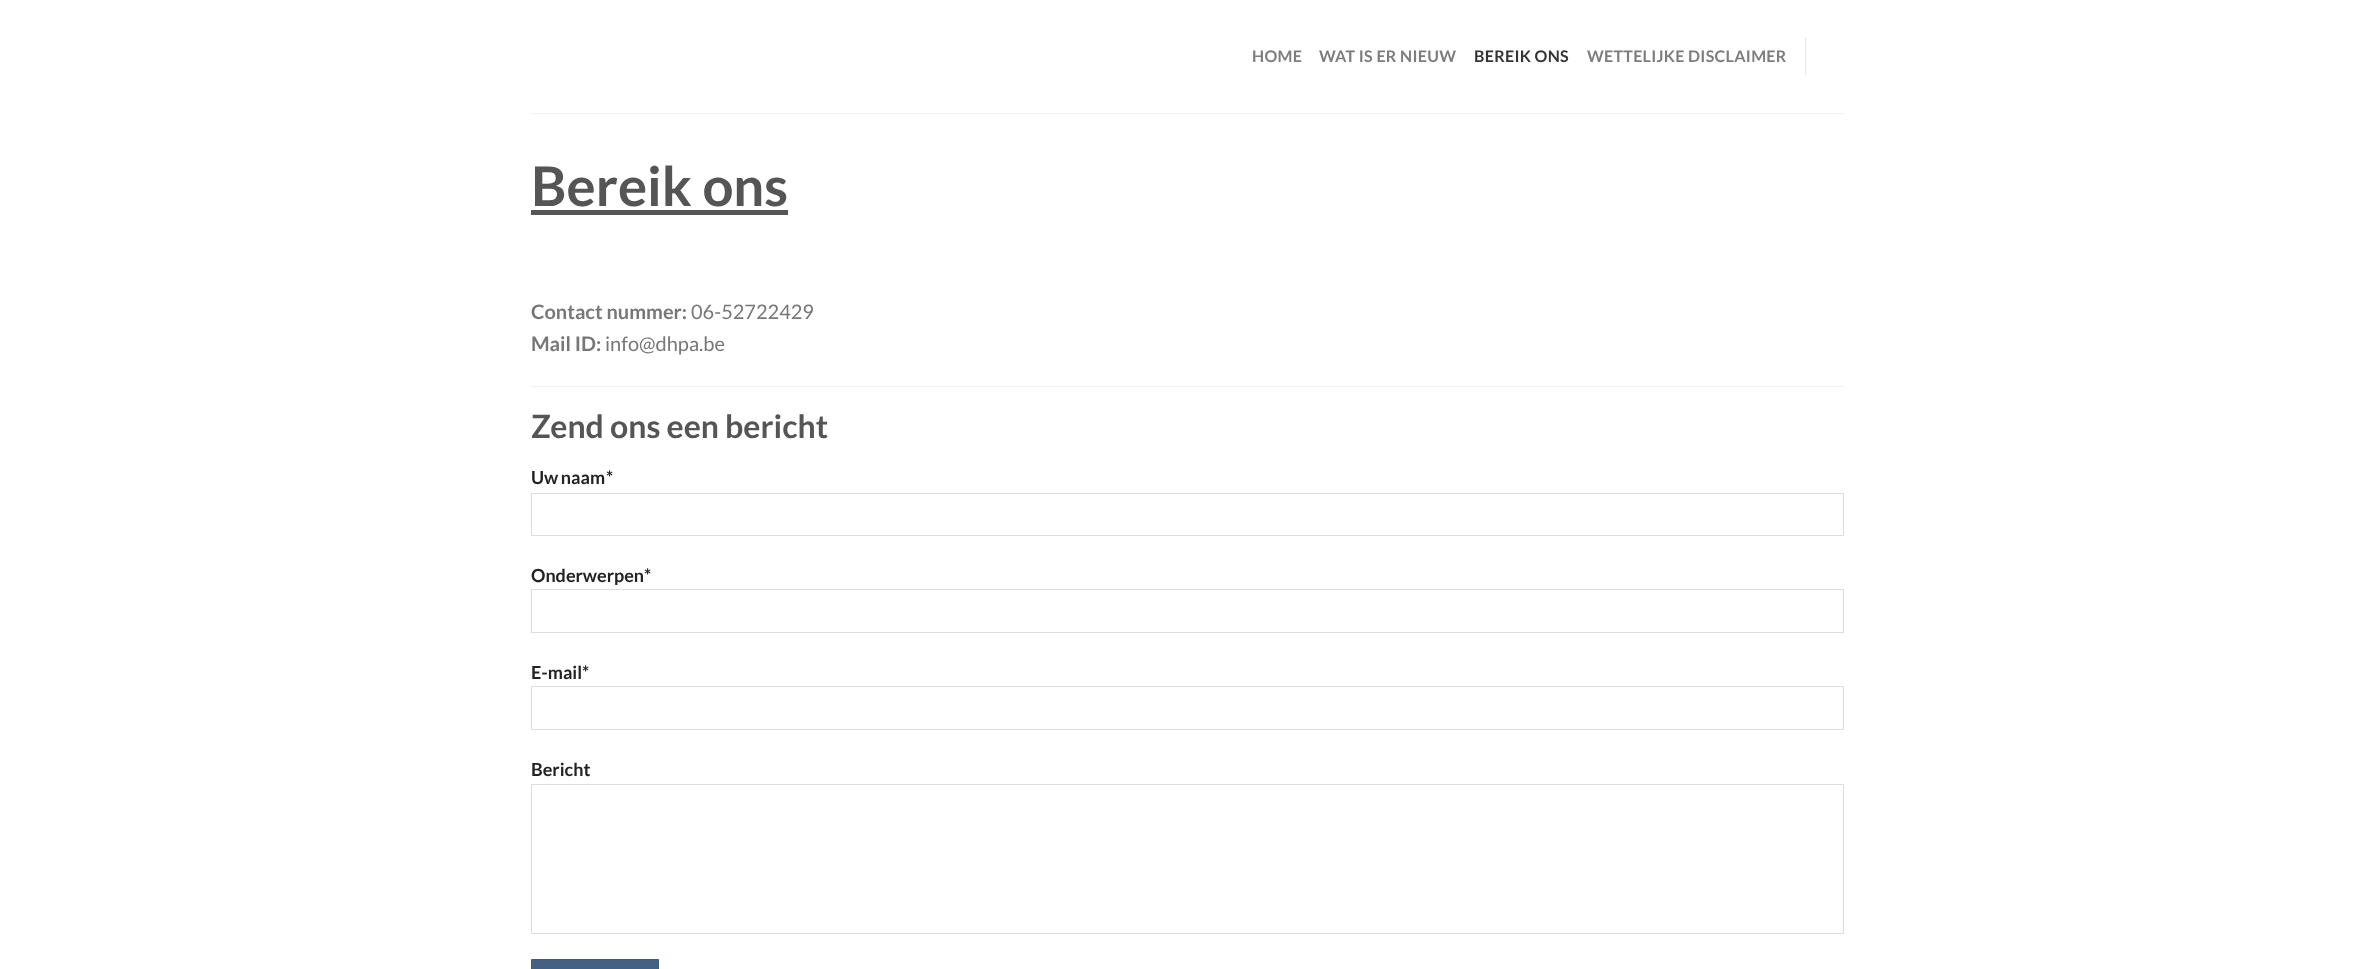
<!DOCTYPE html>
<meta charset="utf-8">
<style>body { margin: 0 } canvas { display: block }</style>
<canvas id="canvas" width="2375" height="969"></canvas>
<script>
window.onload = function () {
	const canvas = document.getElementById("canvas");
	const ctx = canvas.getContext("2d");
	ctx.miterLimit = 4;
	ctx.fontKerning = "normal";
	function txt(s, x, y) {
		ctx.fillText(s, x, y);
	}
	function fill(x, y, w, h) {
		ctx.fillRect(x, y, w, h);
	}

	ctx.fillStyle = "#FFFFFF";
	fill(0, 0, 2375, 969);
	ctx.fillStyle = "#E6E6E6";
	fill(1805, 38, 1, 37);
	ctx.fillStyle = "#F1F1F1";
	fill(531, 113, 1313, 1);
	ctx.fillStyle = "#555555";
	fill(531, 210, 257, 5);
	ctx.fillStyle = "#F2F2F2";
	fill(531, 386, 1313, 1);
	ctx.strokeStyle = "#DDDDDD";
	ctx.strokeRect(531.5, 493.5, 1312, 42);
	ctx.strokeRect(531.5, 589.5, 1312, 43);
	ctx.strokeRect(531.5, 686.5, 1312, 43);
	ctx.strokeRect(531.5, 784.5, 1312, 149);
	ctx.fillStyle = "#446084";
	ctx.beginPath();
	ctx.rect(531.5, 959.5, 127, 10);
	ctx.fill();
	ctx.strokeStyle = "#415B7D";
	ctx.stroke();
	ctx.letterSpacing = "0.3px";
	ctx.font = "bold 16px Lato";
	ctx.fillStyle = "#7D7D7D";
	txt("HOME", 1252, 62);
	txt("WAT IS ER NIEUW", 1319, 62);
	ctx.fillStyle = "#353535";
	txt("BEREIK ONS", 1474, 62);
	ctx.fillStyle = "#7D7D7D";
	txt("WETTELIJKE DISCLAIMER", 1587, 62);
	ctx.letterSpacing = "0px";
	ctx.font = "bold 54.5px Lato";
	ctx.fillStyle = "#555555";
	txt("Bereik ons", 531, 206);
	ctx.font = "bold 20px Lato";
	ctx.fillStyle = "#777777";
	txt("Contact nummer:", 531, 319);
	ctx.font = "20px Lato";
	txt("06-52722429", 691, 319);
	ctx.font = "bold 20px Lato";
	txt("Mail ID:", 531, 351);
	ctx.font = "20px Lato";
	txt("info@dhpa.be", 605, 351);
	ctx.font = "bold 32px Lato";
	ctx.fillStyle = "#555555";
	txt("Zend ons een bericht", 531, 438);
	ctx.wordSpacing = "-1px";
	ctx.font = "bold 18px Lato";
	ctx.fillStyle = "#222222";
	txt("Uw naam", 531, 484);
	ctx.wordSpacing = "0px";
	txt("*", 606, 484);
	txt("Onderwerpen", 531, 582);
	txt("*", 644, 582);
	txt("E-mail*", 531, 679);
	txt("Bericht", 531, 776);
};
</script>
